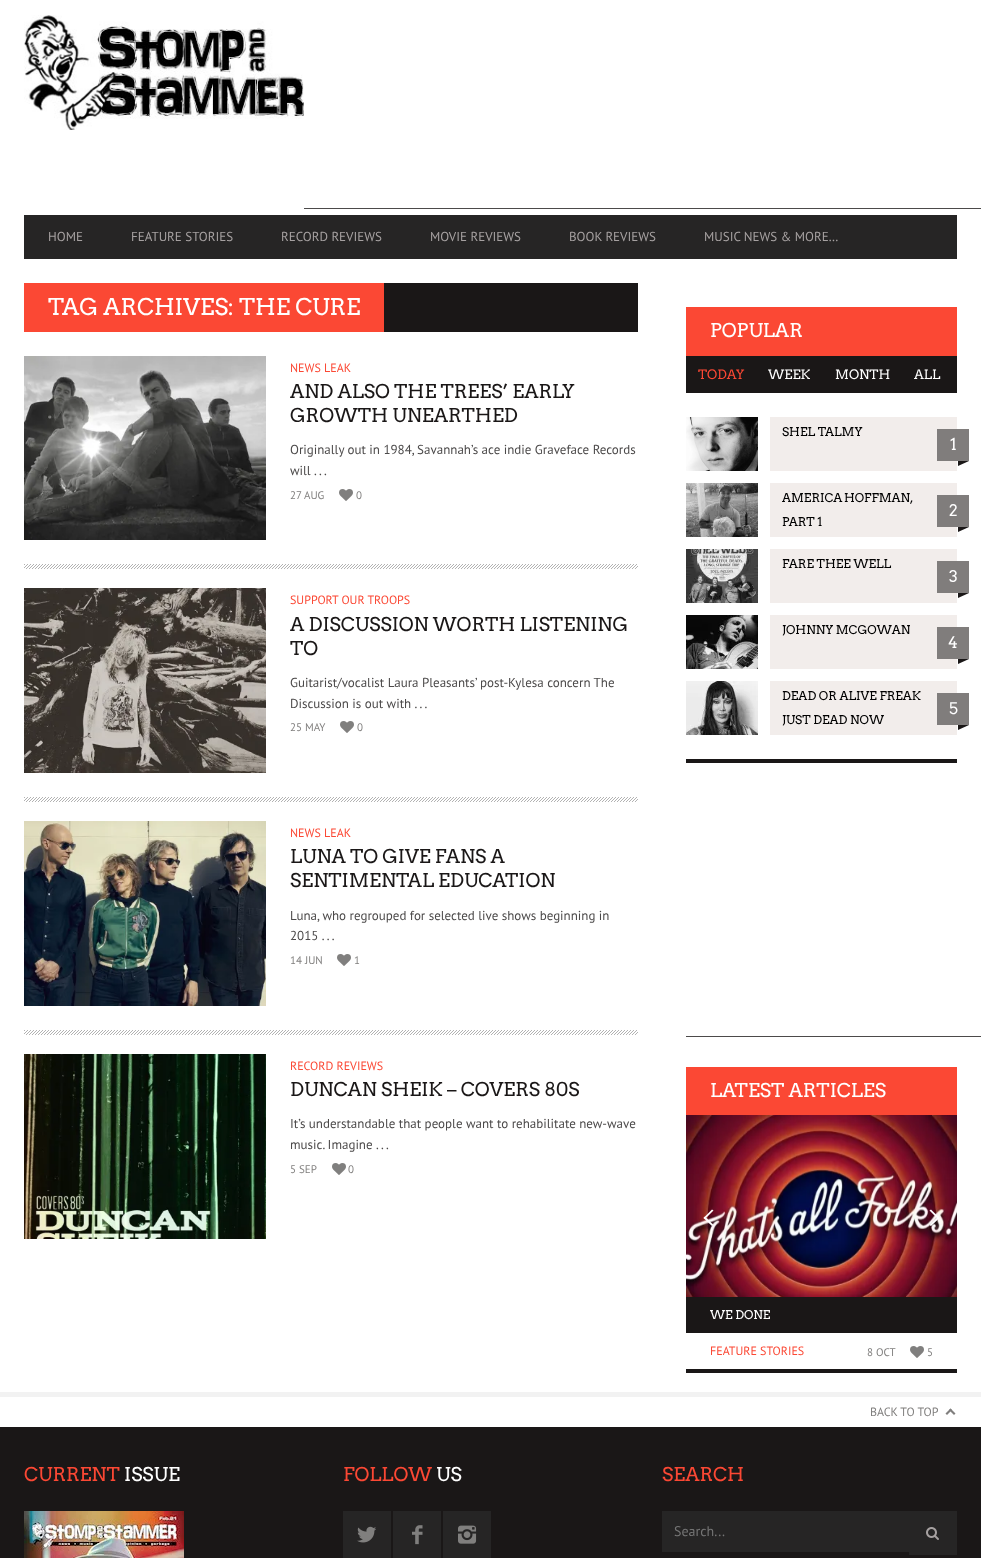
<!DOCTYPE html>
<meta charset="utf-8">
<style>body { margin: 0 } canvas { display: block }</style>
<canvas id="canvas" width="981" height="1558"></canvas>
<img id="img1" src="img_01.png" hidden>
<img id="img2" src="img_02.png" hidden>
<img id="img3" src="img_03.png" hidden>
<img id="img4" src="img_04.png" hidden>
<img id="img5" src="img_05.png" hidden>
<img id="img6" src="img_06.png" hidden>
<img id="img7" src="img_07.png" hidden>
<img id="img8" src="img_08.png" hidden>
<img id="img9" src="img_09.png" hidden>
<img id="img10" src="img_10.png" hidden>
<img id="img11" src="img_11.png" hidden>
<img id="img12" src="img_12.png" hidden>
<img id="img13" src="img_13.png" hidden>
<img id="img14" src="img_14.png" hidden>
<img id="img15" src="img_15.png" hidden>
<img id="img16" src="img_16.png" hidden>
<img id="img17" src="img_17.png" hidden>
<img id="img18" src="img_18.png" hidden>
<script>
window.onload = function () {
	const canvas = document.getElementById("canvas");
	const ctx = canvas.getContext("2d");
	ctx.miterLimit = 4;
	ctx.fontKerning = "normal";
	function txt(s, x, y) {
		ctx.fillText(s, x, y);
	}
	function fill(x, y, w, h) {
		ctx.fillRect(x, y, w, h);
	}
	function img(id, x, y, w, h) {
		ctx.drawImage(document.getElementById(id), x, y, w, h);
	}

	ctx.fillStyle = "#FFFFFF";
	fill(0, 0, 981, 1558);
	img("img1", 24, 15, 280, 115);
	ctx.fillStyle = "#4C4A4A";
	fill(304, 208, 677, 1);
	ctx.fillStyle = "#262525";
	fill(24, 215, 933, 44);
	ctx.fillStyle = "#1A1717";
	fill(384, 283, 254, 49);
	ctx.fillStyle = "#FB4834";
	fill(24, 283, 360, 49);
	img("img2", 24, 356, 242, 184);
	img("img3", 339, 489, 14, 12);
	img("img4", 24, 564, 614, 5);
	img("img5", 24, 588, 242, 185);
	img("img3", 340, 721, 14, 12);
	img("img4", 24, 797, 614, 5);
	img("img6", 24, 821, 242, 185);
	img("img3", 337, 954, 14, 12);
	img("img4", 24, 1030, 614, 5);
	img("img7", 24, 1054, 242, 185);
	img("img3", 332, 1163, 14, 12);
	ctx.fillStyle = "#1A1717";
	fill(686, 759, 271, 4);
	ctx.fillStyle = "#FB4834";
	fill(686, 307, 271, 49);
	ctx.fillStyle = "#1A1717";
	fill(686, 356, 271, 37);
	img("img8", 686, 417, 72, 54);
	ctx.fillStyle = "#F2EDEB";
	fill(770, 417, 187, 54);
	ctx.fillStyle = "#807D7C";
	fill(937, 429, 32, 32);
	ctx.fillStyle = "#1A1717";
	ctx.beginPath();
	ctx.moveTo(958, 461);
	ctx.lineTo(969, 461);
	ctx.lineTo(958, 466);
	ctx.closePath();
	ctx.fill();
	img("img9", 686, 483, 72, 54);
	ctx.fillStyle = "#F2EDEB";
	fill(770, 483, 187, 54);
	ctx.fillStyle = "#807D7C";
	fill(937, 495, 32, 32);
	ctx.fillStyle = "#1A1717";
	ctx.beginPath();
	ctx.moveTo(958, 527);
	ctx.lineTo(969, 527);
	ctx.lineTo(958, 532);
	ctx.closePath();
	ctx.fill();
	img("img10", 686, 549, 72, 54);
	ctx.fillStyle = "#F2EDEB";
	fill(770, 549, 187, 54);
	ctx.fillStyle = "#807D7C";
	fill(937, 561, 32, 32);
	ctx.fillStyle = "#1A1717";
	ctx.beginPath();
	ctx.moveTo(958, 593);
	ctx.lineTo(969, 593);
	ctx.lineTo(958, 598);
	ctx.closePath();
	ctx.fill();
	img("img11", 686, 615, 72, 54);
	ctx.fillStyle = "#F2EDEB";
	fill(770, 615, 187, 54);
	ctx.fillStyle = "#807D7C";
	fill(937, 627, 32, 32);
	ctx.fillStyle = "#1A1717";
	ctx.beginPath();
	ctx.moveTo(958, 659);
	ctx.lineTo(969, 659);
	ctx.lineTo(958, 664);
	ctx.closePath();
	ctx.fill();
	img("img12", 686, 681, 72, 54);
	ctx.fillStyle = "#F2EDEB";
	fill(770, 681, 187, 54);
	ctx.fillStyle = "#807D7C";
	fill(937, 693, 32, 32);
	ctx.fillStyle = "#1A1717";
	ctx.beginPath();
	ctx.moveTo(958, 725);
	ctx.lineTo(969, 725);
	ctx.lineTo(958, 730);
	ctx.closePath();
	ctx.fill();
	ctx.fillStyle = "#4C4A4A";
	fill(686, 1036, 295, 1);
	ctx.fillStyle = "#FB4834";
	fill(686, 1067, 271, 48);
	img("img13", 686, 1115, 271, 182);
	ctx.fillStyle = "#FFFFFF";
	ctx.beginPath();
	ctx.moveTo(705, 1216.5);
	ctx.lineTo(713.5, 1225);
	ctx.lineTo(712, 1226);
	ctx.lineTo(703.5, 1218);
	ctx.closePath();
	ctx.fill();
	ctx.beginPath();
	ctx.moveTo(712, 1209.5);
	ctx.lineTo(713.5, 1210.5);
	ctx.lineTo(705, 1219);
	ctx.lineTo(703.5, 1218);
	ctx.closePath();
	ctx.fill();
	ctx.beginPath();
	ctx.moveTo(929.5, 1210.5);
	ctx.lineTo(931, 1209.5);
	ctx.lineTo(939.5, 1218);
	ctx.lineTo(938, 1219);
	ctx.closePath();
	ctx.fill();
	ctx.beginPath();
	ctx.moveTo(929.5, 1225);
	ctx.lineTo(938, 1216.5);
	ctx.lineTo(939.5, 1218);
	ctx.lineTo(931, 1226);
	ctx.closePath();
	ctx.fill();
	ctx.fillStyle = "#1A1717";
	fill(686, 1369, 271, 4);
	fill(686, 1297, 271, 36);
	img("img3", 910, 1346, 14, 12);
	ctx.fillStyle = "#F2F2F2";
	fill(0, 1392, 981, 5);
	ctx.fillStyle = "#807F7E";
	ctx.beginPath();
	ctx.moveTo(945.5, 1413.5);
	ctx.lineTo(950.5, 1408.5);
	ctx.lineTo(952, 1410);
	ctx.lineTo(947, 1415);
	ctx.closePath();
	ctx.fill();
	ctx.beginPath();
	ctx.moveTo(949, 1410);
	ctx.lineTo(950.5, 1408.5);
	ctx.lineTo(955.5, 1413.5);
	ctx.lineTo(954, 1415);
	ctx.closePath();
	ctx.fill();
	ctx.fillStyle = "#1A1717";
	fill(0, 1427, 981, 131);
	img("img14", 24, 1511, 160, 47);
	ctx.fillStyle = "#262525";
	fill(343, 1511, 48, 47);
	img("img15", 357, 1526, 19, 17);
	fill(393, 1511, 48, 47);
	img("img16", 412, 1525, 11, 20);
	fill(443, 1511, 48, 47);
	img("img17", 458, 1525, 19, 19);
	fill(662, 1511, 247, 41);
	fill(909, 1511, 48, 44);
	img("img18", 926, 1527, 13, 13);
	ctx.font = "13px PT Sans";
	ctx.fillStyle = "#A6A1A1";
	txt("HOME", 48, 241);
	txt("FEATURE STORIES", 131, 241);
	txt("RECORD REVIEWS", 281, 241);
	txt("MOVIE REVIEWS", 430, 241);
	txt("BOOK REVIEWS", 569, 241);
	txt("MUSIC NEWS & MORE…", 704, 241);
	ctx.font = "23px Arvo";
	ctx.fillStyle = "#FFFFFF";
	txt("TAG ARCHIVES: THE CURE", 48, 315);
	ctx.font = "12px PT Sans";
	ctx.fillStyle = "#FB4834";
	txt("NEWS LEAK", 290, 372);
	ctx.font = "19px Arvo";
	ctx.fillStyle = "#1A1717";
	txt("AND ALSO THE TREES’ EARLY", 290, 398);
	txt("GROWTH UNEARTHED", 290, 422);
	ctx.font = "13px PT Sans";
	ctx.fillStyle = "#4C4A4A";
	txt("Originally out in 1984, Savannah’s ace indie Graveface Records", 290, 454);
	txt("will . . .", 290, 475);
	ctx.font = "11px PT Sans";
	ctx.fillStyle = "#807F7E";
	txt("27 AUG", 290, 499);
	txt("0", 356, 499);
	ctx.font = "12px PT Sans";
	ctx.fillStyle = "#FB4834";
	txt("SUPPORT OUR TROOPS", 290, 604);
	ctx.font = "19px Arvo";
	ctx.fillStyle = "#1A1717";
	txt("A DISCUSSION WORTH LISTENING", 290, 631);
	txt("TO", 290, 655);
	ctx.font = "13px PT Sans";
	ctx.fillStyle = "#4C4A4A";
	txt("Guitarist/vocalist Laura Pleasants’ post-Kylesa concern The", 290, 687);
	txt("Discussion is out with . . .", 290, 708);
	ctx.font = "11px PT Sans";
	ctx.fillStyle = "#807F7E";
	txt("25 MAY", 290, 731);
	txt("0", 357, 731);
	ctx.font = "12px PT Sans";
	ctx.fillStyle = "#FB4834";
	txt("NEWS LEAK", 290, 837);
	ctx.font = "19px Arvo";
	ctx.fillStyle = "#1A1717";
	txt("LUNA TO GIVE FANS A", 290, 863);
	txt("SENTIMENTAL EDUCATION", 290, 887);
	ctx.font = "13px PT Sans";
	ctx.fillStyle = "#4C4A4A";
	txt("Luna, who regrouped for selected live shows beginning in", 290, 920);
	txt("2015 . . .", 290, 940);
	ctx.font = "11px PT Sans";
	ctx.fillStyle = "#807F7E";
	txt("14 JUN", 290, 964);
	txt("1", 354, 964);
	ctx.font = "12px PT Sans";
	ctx.fillStyle = "#FB4834";
	txt("RECORD REVIEWS", 290, 1070);
	ctx.font = "19px Arvo";
	ctx.fillStyle = "#1A1717";
	txt("DUNCAN SHEIK – COVERS 80S", 290, 1096);
	ctx.font = "13px PT Sans";
	ctx.fillStyle = "#4C4A4A";
	txt("It’s understandable that people want to rehabilitate new-wave", 290, 1128);
	txt("music. Imagine . . .", 290, 1149);
	ctx.font = "11px PT Sans";
	ctx.fillStyle = "#807F7E";
	txt("5 SEP", 290, 1173);
	txt("0", 348, 1173);
	ctx.font = "19px Arvo";
	ctx.fillStyle = "#FFFFFF";
	txt("POPULAR", 710, 337);
	ctx.font = "13px Arvo";
	ctx.fillStyle = "#FB4834";
	txt("TODAY", 698, 379);
	ctx.fillStyle = "#FFFFFF";
	txt("WEEK", 768, 379);
	txt("MONTH", 835, 379);
	txt("ALL", 914, 379);
	ctx.font = "12px Arvo";
	ctx.fillStyle = "#000000";
	txt("SHEL TALMY", 782, 436);
	ctx.font = "16px Arvo";
	ctx.fillStyle = "#FFFFFF";
	txt("1", 950, 450);
	ctx.wordSpacing = "-1px";
	ctx.font = "12px Arvo";
	ctx.fillStyle = "#000000";
	txt("AMERICA HOFFMAN,", 782, 502);
	ctx.wordSpacing = "0px";
	txt("PART 1", 782, 526);
	ctx.font = "16px Arvo";
	ctx.fillStyle = "#FFFFFF";
	txt("2", 949, 516);
	ctx.font = "12px Arvo";
	ctx.fillStyle = "#000000";
	txt("FARE THEE WELL", 782, 568);
	ctx.font = "16px Arvo";
	ctx.fillStyle = "#FFFFFF";
	txt("3", 949, 582);
	ctx.font = "12px Arvo";
	ctx.fillStyle = "#000000";
	txt("JOHNNY MCGOWAN", 782, 634);
	ctx.font = "16px Arvo";
	ctx.fillStyle = "#FFFFFF";
	txt("4", 948, 648);
	ctx.font = "12px Arvo";
	ctx.fillStyle = "#000000";
	txt("DEAD OR ALIVE FREAK", 782, 700);
	txt("JUST DEAD NOW", 782, 724);
	ctx.font = "16px Arvo";
	ctx.fillStyle = "#FFFFFF";
	txt("5", 949, 714);
	ctx.font = "19px Arvo";
	txt("LATEST ARTICLES", 710, 1097);
	ctx.font = "12px Arvo";
	txt("WE DONE", 710, 1319);
	ctx.font = "12px PT Sans";
	ctx.fillStyle = "#FB4834";
	txt("FEATURE STORIES", 710, 1355);
	ctx.font = "11px PT Sans";
	ctx.fillStyle = "#807F7E";
	txt("8 OCT", 867, 1356);
	txt("5", 927, 1356);
	ctx.font = "12px PT Sans";
	txt("BACK TO TOP", 870, 1416);
	ctx.font = "19px Arvo";
	ctx.fillStyle = "#FB4834";
	txt("CURRENT", 24, 1481);
	ctx.fillStyle = "#FFFFFF";
	txt("ISSUE", 124, 1481);
	ctx.fillStyle = "#FB4834";
	txt("FOLLOW", 343, 1481);
	ctx.fillStyle = "#FFFFFF";
	txt("US", 436, 1481);
	ctx.fillStyle = "#FB4834";
	txt("SEARCH", 662, 1481);
	ctx.font = "14px PT Sans";
	ctx.fillStyle = "#757575";
	txt("Search...", 674, 1536);
};
</script>
